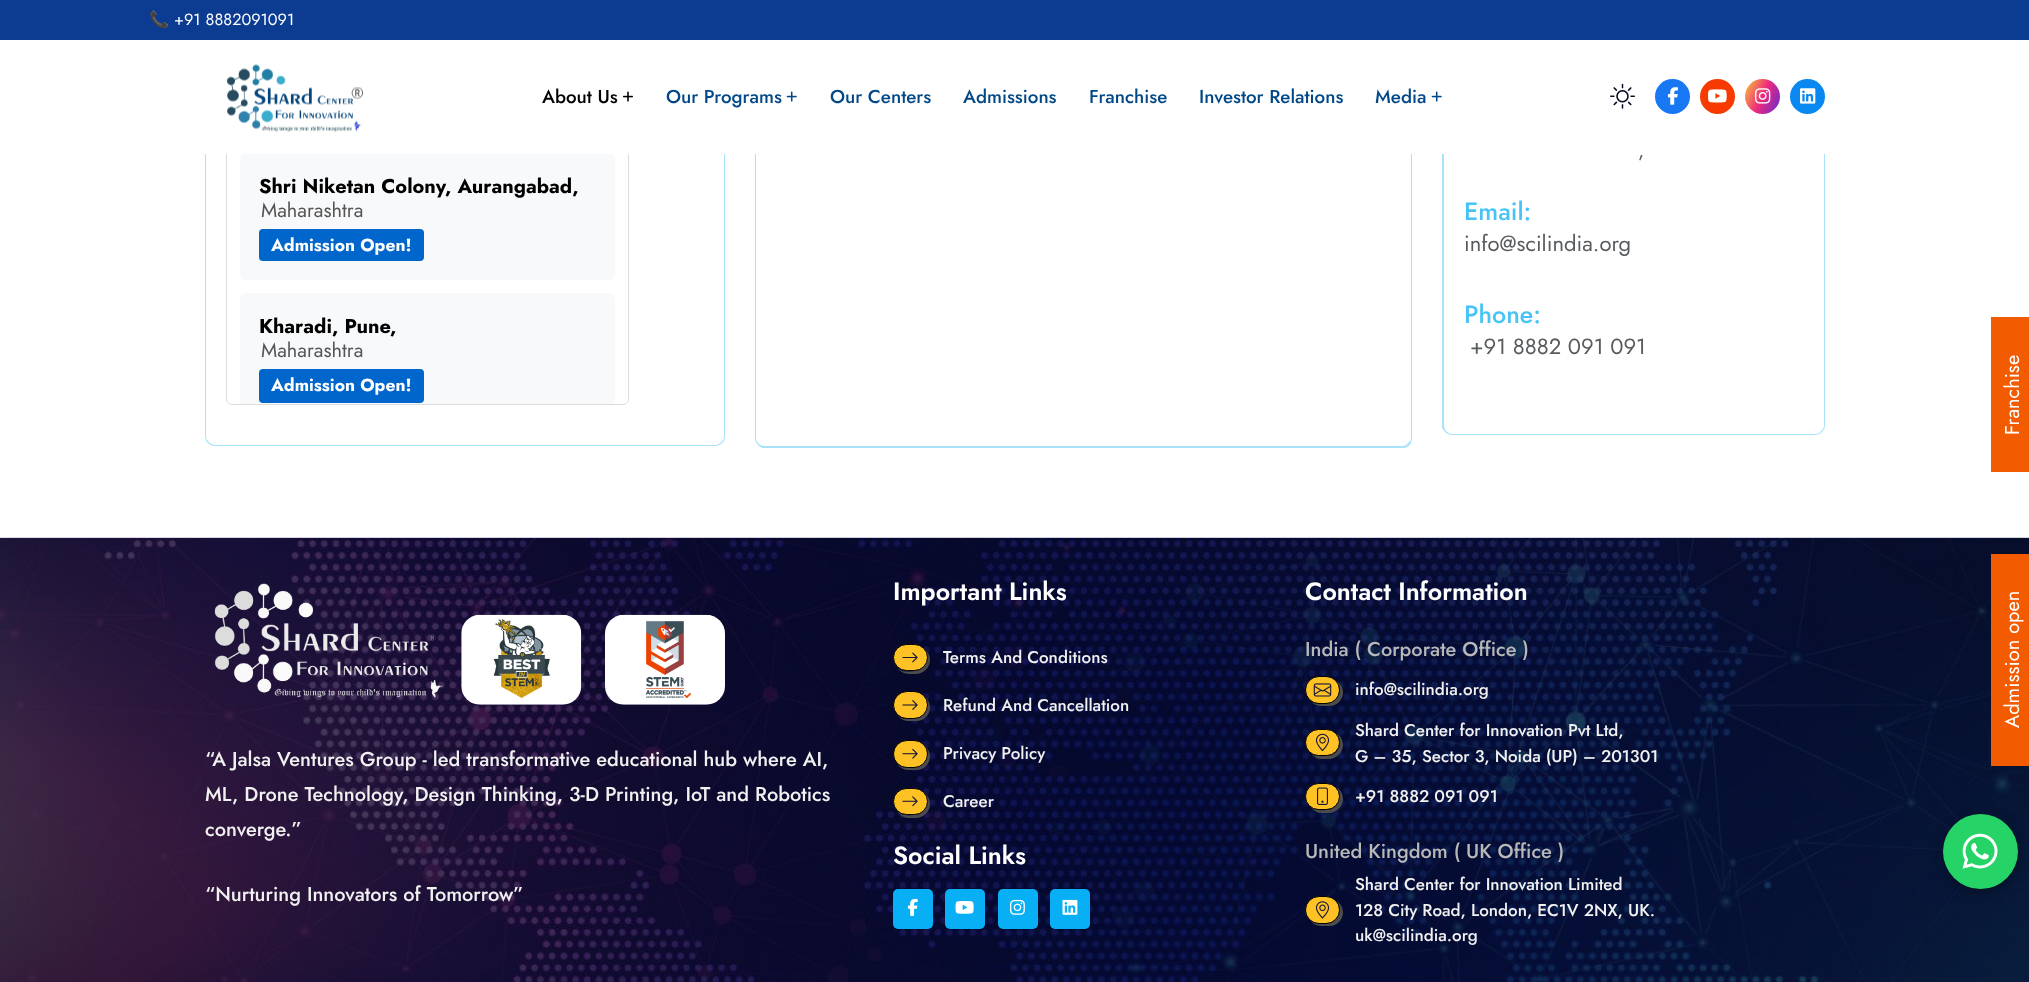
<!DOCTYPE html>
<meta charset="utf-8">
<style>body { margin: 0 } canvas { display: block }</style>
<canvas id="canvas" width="2029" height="982"></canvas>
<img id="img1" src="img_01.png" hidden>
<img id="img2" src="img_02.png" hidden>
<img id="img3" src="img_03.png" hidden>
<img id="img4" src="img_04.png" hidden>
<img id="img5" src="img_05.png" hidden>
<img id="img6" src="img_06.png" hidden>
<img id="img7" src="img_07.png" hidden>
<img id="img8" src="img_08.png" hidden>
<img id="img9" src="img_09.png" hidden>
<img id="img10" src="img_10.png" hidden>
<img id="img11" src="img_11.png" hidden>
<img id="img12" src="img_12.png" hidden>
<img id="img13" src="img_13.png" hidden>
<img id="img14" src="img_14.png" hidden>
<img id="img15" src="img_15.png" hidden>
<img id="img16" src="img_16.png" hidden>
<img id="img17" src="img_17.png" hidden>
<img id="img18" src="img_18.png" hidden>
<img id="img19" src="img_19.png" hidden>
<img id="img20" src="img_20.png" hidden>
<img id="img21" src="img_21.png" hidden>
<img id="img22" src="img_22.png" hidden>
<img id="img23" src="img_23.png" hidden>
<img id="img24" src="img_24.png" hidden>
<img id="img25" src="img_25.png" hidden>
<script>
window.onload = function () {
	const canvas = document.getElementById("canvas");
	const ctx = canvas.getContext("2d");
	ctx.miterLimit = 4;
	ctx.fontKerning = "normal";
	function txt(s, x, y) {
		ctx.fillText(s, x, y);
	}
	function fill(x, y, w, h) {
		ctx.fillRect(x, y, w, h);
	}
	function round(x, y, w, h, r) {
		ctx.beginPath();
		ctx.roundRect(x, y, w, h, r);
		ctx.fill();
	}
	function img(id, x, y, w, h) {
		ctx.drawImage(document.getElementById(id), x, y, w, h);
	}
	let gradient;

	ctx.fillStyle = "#FFFFFF";
	fill(0, 0, 2029, 982);
	ctx.fillStyle = "#A9E3FB";
	ctx.beginPath();
	ctx.moveTo(725, -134);
	ctx.lineTo(724, -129);
	ctx.lineTo(724, 436);
	ctx.bezierCurveTo(724, 439, 723, 441, 721, 442);
	ctx.lineTo(722, 443);
	ctx.bezierCurveTo(724, 442, 725, 439, 725, 436);
	ctx.closePath();
	ctx.fill();
	ctx.fillStyle = "rgba(9, 175, 244, 0.35)";
	ctx.beginPath();
	ctx.moveTo(722, 443);
	ctx.bezierCurveTo(720, 445, 718, 446, 715, 446);
	ctx.lineTo(215, 446);
	ctx.bezierCurveTo(212, 446, 210, 445, 208, 443);
	ctx.lineTo(209, 442);
	ctx.bezierCurveTo(210, 444, 213, 445, 215, 445);
	ctx.lineTo(715, 445);
	ctx.bezierCurveTo(717, 445, 720, 444, 721, 442);
	ctx.closePath();
	ctx.fill();
	ctx.beginPath();
	ctx.moveTo(206, -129);
	ctx.lineTo(205, -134);
	ctx.lineTo(205, 436);
	ctx.bezierCurveTo(205, 439, 206, 442, 208, 443);
	ctx.lineTo(209, 442);
	ctx.bezierCurveTo(207, 441, 206, 439, 206, 436);
	ctx.closePath();
	ctx.fill();
	ctx.beginPath();
	ctx.roundRect(226.5, -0.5, 402, 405, 5.5);
	ctx.strokeStyle = "#DDDDDD";
	ctx.stroke();
	ctx.fillStyle = "#A9E3FB";
	ctx.beginPath();
	ctx.moveTo(1412, -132);
	ctx.lineTo(1412, 438);
	ctx.bezierCurveTo(1412, 440, 1411, 443, 1410, 445);
	ctx.lineTo(1408, 443);
	ctx.bezierCurveTo(1410, 442, 1411, 440, 1411, 438);
	ctx.lineTo(1411, -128);
	ctx.closePath();
	ctx.fill();
	ctx.fillStyle = "rgba(9, 175, 244, 0.35)";
	ctx.beginPath();
	ctx.moveTo(762, 448);
	ctx.lineTo(758, 445);
	ctx.lineTo(759, 444);
	ctx.bezierCurveTo(760, 445, 763, 446, 765, 446);
	ctx.lineTo(1402, 446);
	ctx.bezierCurveTo(1405, 446, 1407, 445, 1408, 443);
	ctx.lineTo(1410, 445);
	ctx.bezierCurveTo(1408, 446, 1407, 447, 1405, 448);
	ctx.closePath();
	ctx.fill();
	ctx.beginPath();
	ctx.moveTo(756, -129);
	ctx.lineTo(755, -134);
	ctx.lineTo(755, 438);
	ctx.bezierCurveTo(755, 440, 756, 443, 758, 445);
	ctx.lineTo(759, 444);
	ctx.bezierCurveTo(757, 442, 756, 440, 756, 438);
	ctx.closePath();
	ctx.fill();
	ctx.fillStyle = "#A9E3FB";
	ctx.beginPath();
	ctx.moveTo(1825, -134);
	ctx.lineTo(1824, -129);
	ctx.lineTo(1824, 425);
	ctx.bezierCurveTo(1824, 428, 1823, 430, 1821, 431);
	ctx.lineTo(1822, 432);
	ctx.bezierCurveTo(1824, 430, 1825, 428, 1825, 425);
	ctx.closePath();
	ctx.fill();
	ctx.fillStyle = "rgba(9, 175, 244, 0.35)";
	ctx.beginPath();
	ctx.moveTo(1452, 435);
	ctx.lineTo(1815, 435);
	ctx.bezierCurveTo(1818, 435, 1820, 434, 1822, 432);
	ctx.lineTo(1821, 431);
	ctx.bezierCurveTo(1820, 433, 1818, 434, 1815, 434);
	ctx.lineTo(1452, 434);
	ctx.bezierCurveTo(1450, 434, 1448, 433, 1446, 431);
	ctx.lineTo(1445, 432);
	ctx.bezierCurveTo(1447, 434, 1450, 435, 1452, 435);
	ctx.closePath();
	ctx.fill();
	ctx.beginPath();
	ctx.moveTo(1445, 432);
	ctx.lineTo(1442, 428);
	ctx.lineTo(1442, -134);
	ctx.lineTo(1444, -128);
	ctx.lineTo(1444, 425);
	ctx.bezierCurveTo(1444, 427, 1445, 430, 1446, 431);
	ctx.closePath();
	ctx.fill();
	ctx.fillStyle = "#0B3C91";
	fill(0, 0, 2029, 40);
	ctx.fillStyle = "#F8F9FA";
	round(240, 153, 375, 127, 6);
	ctx.fillStyle = "#FFFFFF";
	fill(205, 40, 1620, 114);
	img("img1", 226, 64, 138, 68);
	img("img2", 622, 91, 11, 11);
	img("img3", 786, 91, 11, 11);
	img("img3", 1431, 91, 11, 11);
	img("img4", 1610, 83, 25, 26);
	ctx.fillStyle = "#1877F2";
	ctx.beginPath();
	ctx.arc(1672.5, 96.5, 17.5, 0, Math.PI * 2);
	ctx.fill();
	img("img5", 1667, 87, 11, 18);
	ctx.fillStyle = "#F73B00";
	ctx.beginPath();
	ctx.arc(1717.5, 96.5, 17.5, 0, Math.PI * 2);
	ctx.fill();
	img("img6", 1708, 89, 19, 14);
	gradient = ctx.createLinearGradient(1741, 86, 1784, 106);
	gradient.addColorStop(0, "#F9CE34");
	gradient.addColorStop(0.5, "#EE2A7B");
	gradient.addColorStop(1, "#6228D7");
	ctx.fillStyle = gradient;
	ctx.beginPath();
	ctx.arc(1762.5, 96.5, 17.5, 0, Math.PI * 2);
	ctx.fill();
	img("img7", 1755, 88, 16, 16);
	ctx.fillStyle = "#0888F0";
	ctx.beginPath();
	ctx.arc(1807.5, 96.5, 17.5, 0, Math.PI * 2);
	ctx.fill();
	img("img8", 1800, 88, 16, 16);
	ctx.fillStyle = "#0066CC";
	round(259, 229, 165, 32, 4);
	ctx.fillStyle = "#F8F9FA";
	ctx.beginPath();
	ctx.roundRect(240, 293, 375, 111, [6, 6, 0, 0]);
	ctx.fill();
	ctx.fillStyle = "#0066CC";
	round(259, 369, 165, 34, 4);
	ctx.fillStyle = "#060922";
	fill(0, 538, 2029, 444);
	ctx.fillStyle = "#F25B00";
	fill(1991, 317, 38, 155);
	img("img9", 0, 537, 2029, 445);
	img("img10", 214, 583, 230, 115);
	img("img11", 461, 614, 121, 91);
	img("img12", 605, 614, 120, 91);
	ctx.fillStyle = "#4C4C4C";
	ctx.beginPath();
	ctx.moveTo(897.5, 668.5);
	ctx.bezierCurveTo(900.5, 671.5, 904.5, 674, 909, 674);
	ctx.lineTo(916, 674);
	ctx.bezierCurveTo(923.5, 674, 930, 667.5, 930, 660);
	ctx.bezierCurveTo(930, 655.5, 928, 651.5, 924.5, 649);
	ctx.bezierCurveTo(930, 655.5, 927.5, 666.5, 919, 670);
	ctx.bezierCurveTo(916, 671.5, 906.5, 672, 902.5, 671);
	ctx.bezierCurveTo(901, 670.5, 899, 669.5, 897.5, 668.5);
	ctx.closePath();
	ctx.fill();
	ctx.fillStyle = "#FFC224";
	ctx.beginPath();
	ctx.roundRect(893.5, 644.5, 34, 26, 13);
	ctx.fill();
	ctx.strokeStyle = "#000000";
	ctx.stroke();
	img("img13", 902, 652, 16, 11);
	ctx.fillStyle = "#4C4C4C";
	ctx.beginPath();
	ctx.moveTo(898, 716);
	ctx.bezierCurveTo(900.5, 719, 904.5, 721, 908.5, 721);
	ctx.lineTo(916.5, 721);
	ctx.bezierCurveTo(924, 721, 930, 715, 930, 707.5);
	ctx.bezierCurveTo(930, 703, 928, 699.5, 925, 697);
	ctx.bezierCurveTo(930, 704, 927, 714.5, 919, 717.5);
	ctx.bezierCurveTo(916, 719, 906.5, 719.5, 903, 718.5);
	ctx.bezierCurveTo(901, 718, 899.5, 717, 898, 716);
	ctx.closePath();
	ctx.fill();
	ctx.fillStyle = "#FFC224";
	ctx.beginPath();
	ctx.roundRect(893.5, 691.5, 34, 27, 13.5);
	ctx.fill();
	ctx.stroke();
	img("img14", 902, 700, 16, 10);
	ctx.fillStyle = "#4C4C4C";
	ctx.beginPath();
	ctx.moveTo(897.5, 764.5);
	ctx.bezierCurveTo(900, 768, 904, 770, 908.5, 770);
	ctx.lineTo(916.5, 770);
	ctx.bezierCurveTo(924, 770, 930, 764, 930, 756.5);
	ctx.bezierCurveTo(930, 752.5, 928, 748.5, 925.5, 746);
	ctx.bezierCurveTo(930, 753, 927, 763, 919, 766.5);
	ctx.bezierCurveTo(916, 768, 906.5, 768, 902.5, 767);
	ctx.bezierCurveTo(901, 766.5, 899, 765.5, 897.5, 764.5);
	ctx.closePath();
	ctx.fill();
	ctx.fillStyle = "#FFC224";
	ctx.beginPath();
	ctx.roundRect(893.5, 740.5, 34, 27, 13.5);
	ctx.fill();
	ctx.stroke();
	img("img15", 902, 748, 16, 11);
	ctx.fillStyle = "#4C4C4C";
	ctx.beginPath();
	ctx.moveTo(897.5, 811.5);
	ctx.bezierCurveTo(900, 815.5, 904, 818, 909, 818);
	ctx.lineTo(916, 818);
	ctx.bezierCurveTo(923.5, 818, 930, 811.5, 930, 804);
	ctx.bezierCurveTo(930, 799.5, 928, 795.5, 925, 793);
	ctx.bezierCurveTo(930, 800, 927, 810.5, 919, 814);
	ctx.bezierCurveTo(915.5, 815.5, 906.5, 815.5, 902.5, 814.5);
	ctx.bezierCurveTo(900.5, 814, 899, 813, 897.5, 811.5);
	ctx.closePath();
	ctx.fill();
	ctx.fillStyle = "#FFC224";
	ctx.beginPath();
	ctx.roundRect(893.5, 788.5, 34, 26, 13);
	ctx.fill();
	ctx.stroke();
	img("img16", 902, 796, 16, 11);
	ctx.fillStyle = "#09AFF4";
	round(893, 889, 40, 40, 5);
	img("img17", 907, 898, 11, 18);
	round(945, 889, 40, 40, 5);
	img("img18", 955, 901, 19, 13);
	round(998, 889, 40, 40, 5);
	img("img19", 1010, 899, 15, 16);
	round(1050, 889, 40, 40, 5);
	img("img20", 1062, 899, 16, 16);
	ctx.fillStyle = "#4C4C4C";
	ctx.beginPath();
	ctx.moveTo(1311.5, 702);
	ctx.bezierCurveTo(1314, 704.5, 1317.5, 706, 1321.5, 706);
	ctx.lineTo(1329.5, 706);
	ctx.bezierCurveTo(1337, 706, 1343, 700, 1343, 692.5);
	ctx.bezierCurveTo(1343, 687.5, 1340.5, 683.5, 1336.5, 681);
	ctx.bezierCurveTo(1342.5, 688, 1340, 699, 1331.5, 702.5);
	ctx.bezierCurveTo(1327.5, 704.5, 1316, 704.5, 1311.5, 702);
	ctx.closePath();
	ctx.fill();
	ctx.fillStyle = "#FFC224";
	ctx.beginPath();
	ctx.roundRect(1305.5, 676.5, 34, 27, 13.5);
	ctx.fill();
	ctx.stroke();
	img("img21", 1313, 683, 19, 14);
	ctx.fillStyle = "#4C4C4C";
	ctx.beginPath();
	ctx.moveTo(1311.5, 754);
	ctx.bezierCurveTo(1314, 757, 1317.5, 759, 1322, 759);
	ctx.lineTo(1329, 759);
	ctx.bezierCurveTo(1336.5, 759, 1343, 752.5, 1343, 745);
	ctx.bezierCurveTo(1343, 740, 1340.5, 735.5, 1336, 733);
	ctx.bezierCurveTo(1338.5, 735.5, 1340, 739, 1340, 742.5);
	ctx.bezierCurveTo(1340, 750, 1334, 756, 1326, 756);
	ctx.lineTo(1319, 756);
	ctx.bezierCurveTo(1316, 756, 1313.5, 755.5, 1311.5, 754);
	ctx.closePath();
	ctx.fill();
	ctx.fillStyle = "#FFC224";
	ctx.beginPath();
	ctx.roundRect(1305.5, 729.5, 34, 26, 13);
	ctx.fill();
	ctx.stroke();
	img("img22", 1315, 733, 15, 19);
	ctx.fillStyle = "#4C4C4C";
	ctx.beginPath();
	ctx.moveTo(1311, 807.5);
	ctx.bezierCurveTo(1313.5, 811, 1317.5, 813, 1322, 813);
	ctx.lineTo(1329, 813);
	ctx.bezierCurveTo(1336.5, 813, 1343, 806.5, 1343, 799);
	ctx.bezierCurveTo(1343, 794, 1340.5, 790, 1336.5, 787.5);
	ctx.bezierCurveTo(1342.5, 794, 1340, 805.5, 1331.5, 809);
	ctx.bezierCurveTo(1328.5, 810.5, 1319.5, 810.5, 1315.5, 809.5);
	ctx.bezierCurveTo(1314, 809, 1312.5, 808.5, 1311, 807.5);
	ctx.closePath();
	ctx.fill();
	ctx.fillStyle = "#FFC224";
	ctx.beginPath();
	ctx.roundRect(1305.5, 783.5, 34, 26, 13);
	ctx.fill();
	ctx.stroke();
	img("img23", 1317, 787, 11, 18);
	ctx.fillStyle = "#4C4C4C";
	ctx.beginPath();
	ctx.moveTo(1311.5, 922);
	ctx.bezierCurveTo(1314, 924.5, 1317.5, 926, 1321.5, 926);
	ctx.lineTo(1329.5, 926);
	ctx.bezierCurveTo(1337, 926, 1343, 920, 1343, 912.5);
	ctx.bezierCurveTo(1343, 907.5, 1340.5, 903.5, 1336.5, 901);
	ctx.bezierCurveTo(1342.5, 908, 1340, 919, 1331.5, 922.5);
	ctx.bezierCurveTo(1327.5, 924.5, 1316, 924.5, 1311.5, 922);
	ctx.closePath();
	ctx.fill();
	ctx.fillStyle = "#FFC224";
	ctx.beginPath();
	ctx.roundRect(1305.5, 896.5, 34, 27, 13.5);
	ctx.fill();
	ctx.stroke();
	img("img24", 1315, 901, 15, 18);
	ctx.fillStyle = "#F25B00";
	fill(1991, 554, 38, 212);
	ctx.fillStyle = "rgba(0, 0, 0, 0.3)";
	ctx.filter = "blur(6px)";
	ctx.beginPath();
	ctx.roundRect(1943, 818, 75, 75, 37.5);
	ctx.fill();
	ctx.filter = "none";
	ctx.fillStyle = "#25D366";
	ctx.beginPath();
	ctx.arc(1980.5, 851.5, 37.5, 0, Math.PI * 2);
	ctx.fill();
	img("img25", 1962, 833, 36, 36);
	ctx.font = "16.25px Noto Color Emoji";
	ctx.fillStyle = "#FFFFFF";
	txt("📞", 149, 25);
	ctx.font = "16.25px Jost";
	txt("+91 8882091091", 174, 25);
	ctx.font = "500 18.75px Jost";
	ctx.fillStyle = "#000000";
	txt("About Us", 542, 103);
	ctx.fillStyle = "#004888";
	txt("Our Programs", 666, 103);
	txt("Our Centers", 830, 103);
	txt("Admissions", 963, 103);
	txt("Franchise", 1089, 103);
	txt("Investor Relations", 1199, 103);
	txt("Media", 1375, 103);
	ctx.font = "bold 20px Jost";
	ctx.fillStyle = "#000000";
	txt("Shri Niketan Colony, Aurangabad,", 259, 193);
	ctx.font = "20px Jost";
	ctx.fillStyle = "#555555";
	txt("Maharashtra", 261, 217);
	ctx.font = "bold 17.5px Jost";
	ctx.fillStyle = "#FFFFFF";
	txt("Admission Open!", 271, 251);
	ctx.font = "bold 20px Jost";
	ctx.fillStyle = "#000000";
	txt("Kharadi, Pune,", 259, 333);
	ctx.font = "20px Jost";
	ctx.fillStyle = "#555555";
	txt("Maharashtra", 261, 357);
	ctx.font = "bold 17.5px Jost";
	ctx.fillStyle = "#FFFFFF";
	txt("Admission Open!", 271, 391);
	ctx.font = "20px Jost";
	ctx.fillStyle = "#595C5F";
	txt(",", 1638, 157);
	ctx.font = "500 25px Jost";
	ctx.fillStyle = "#47C3F7";
	txt("Email:", 1464, 220);
	ctx.font = "22px Jost";
	ctx.fillStyle = "#595C5F";
	txt("info@scilindia.org", 1464, 251);
	ctx.font = "500 25px Jost";
	ctx.fillStyle = "#47C3F7";
	txt("Phone:", 1464, 323);
	ctx.font = "22px Jost";
	ctx.fillStyle = "#595C5F";
	txt("+91 8882 091 091", 1470, 354);
	ctx.font = "20px Jost";
	ctx.fillStyle = "#FFFFFF";
	ctx.save();
	ctx.translate(2019, 435);
	ctx.rotate(-90 * Math.PI / 180);
	ctx.fillText("Franchise", 0, 0);
	ctx.restore();
	ctx.font = "500 20px Jost";
	ctx.fillStyle = "#F1F1F1";
	txt("“A Jalsa Ventures Group - led transformative educational hub where AI,", 205, 766);
	txt("ML, Drone Technology, Design Thinking, 3-D Printing, IoT and Robotics", 205, 801);
	txt("converge.”", 205, 836);
	txt("“Nurturing Innovators of Tomorrow”", 205, 901);
	ctx.font = "600 25px Jost";
	ctx.fillStyle = "#FFFFFF";
	txt("Important Links", 893, 600);
	ctx.font = "500 17px Jost";
	ctx.fillStyle = "#F1F1F1";
	txt("Terms And Conditions", 943, 663);
	txt("Refund And Cancellation", 943, 711);
	txt("Privacy Policy", 943, 759);
	txt("Career", 943, 807);
	ctx.font = "600 25px Jost";
	ctx.fillStyle = "#FFFFFF";
	txt("Social Links", 893, 864);
	txt("Contact Information", 1305, 600);
	ctx.font = "500 20px Jost";
	ctx.fillStyle = "#B8B8B8";
	txt("India ( Corporate Office )", 1305, 656);
	ctx.font = "500 17px Jost";
	ctx.fillStyle = "#F1F1F1";
	txt("info@scilindia.org", 1355, 695);
	txt("Shard Center for Innovation Pvt Ltd,", 1355, 736);
	txt("G – 35, Sector 3, Noida (UP) – 201301", 1355, 762);
	txt("+91 8882 091 091", 1355, 802);
	ctx.font = "500 20px Jost";
	ctx.fillStyle = "#B8B8B8";
	txt("United Kingdom ( UK Office )", 1305, 858);
	ctx.font = "500 17px Jost";
	ctx.fillStyle = "#F1F1F1";
	txt("Shard Center for Innovation Limited", 1355, 890);
	txt("128 City Road, London, EC1V 2NX, UK.", 1355, 916);
	txt("uk@scilindia.org", 1355, 941);
	ctx.font = "20px Jost";
	ctx.fillStyle = "#FFFFFF";
	ctx.save();
	ctx.translate(2019, 728);
	ctx.rotate(-90 * Math.PI / 180);
	ctx.fillText("Admission open", 0, 0);
	ctx.restore();
};
</script>
